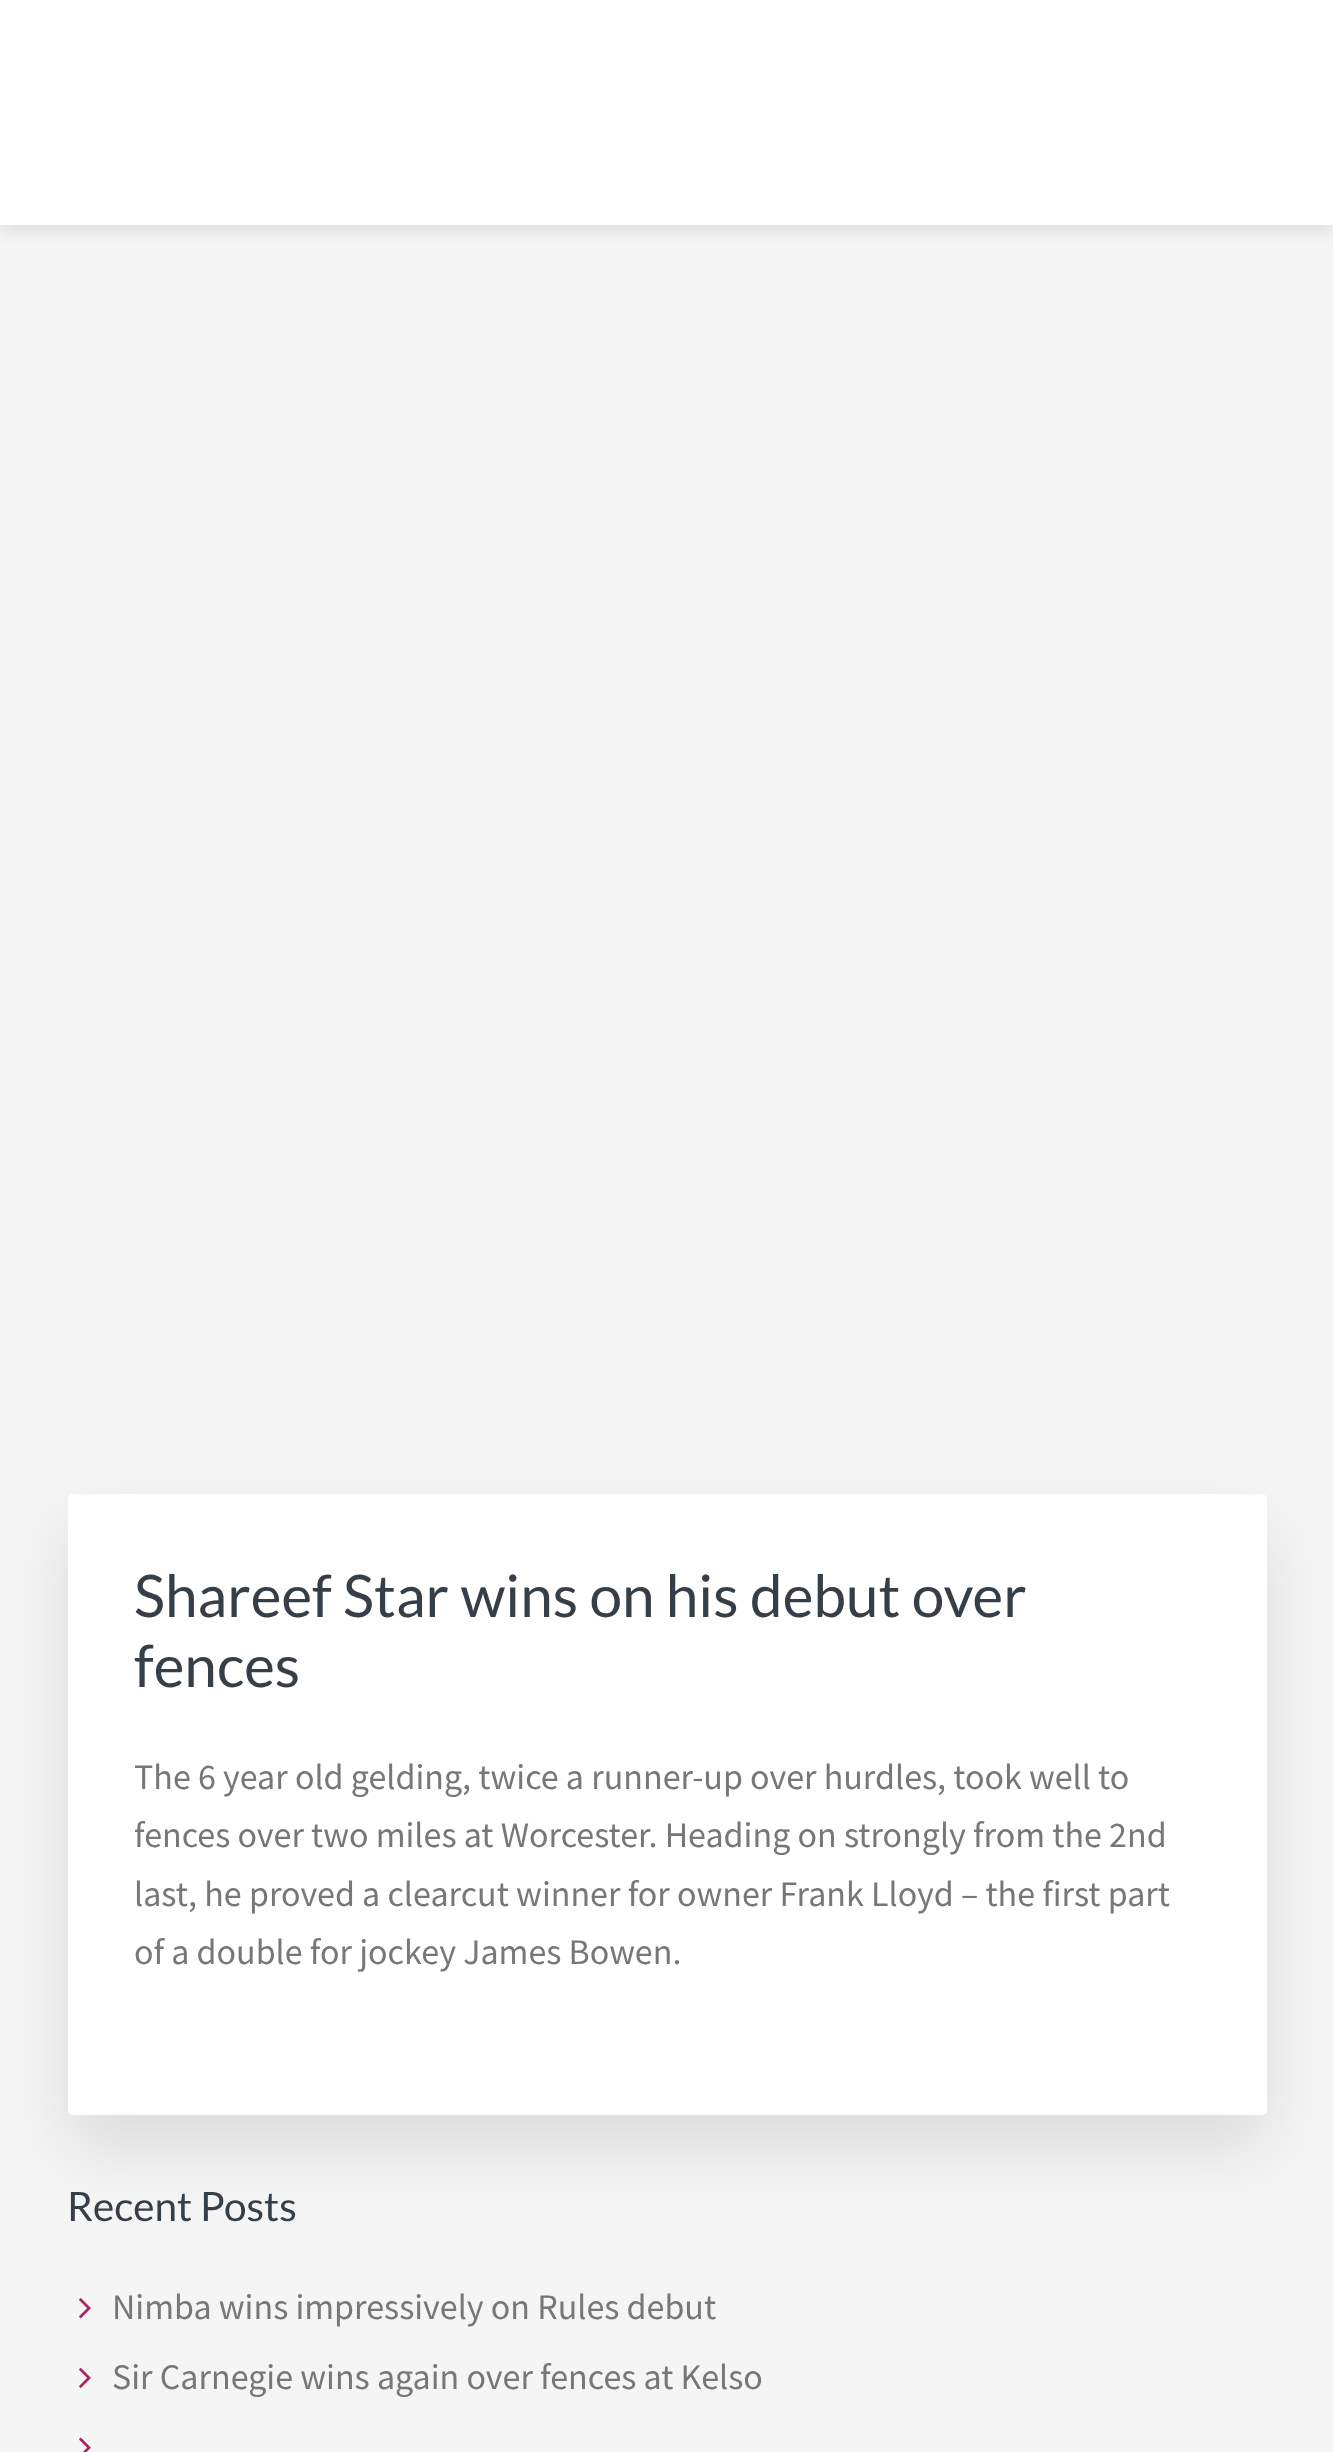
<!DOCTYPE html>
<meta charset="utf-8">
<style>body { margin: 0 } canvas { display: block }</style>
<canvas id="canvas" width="1333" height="2452"></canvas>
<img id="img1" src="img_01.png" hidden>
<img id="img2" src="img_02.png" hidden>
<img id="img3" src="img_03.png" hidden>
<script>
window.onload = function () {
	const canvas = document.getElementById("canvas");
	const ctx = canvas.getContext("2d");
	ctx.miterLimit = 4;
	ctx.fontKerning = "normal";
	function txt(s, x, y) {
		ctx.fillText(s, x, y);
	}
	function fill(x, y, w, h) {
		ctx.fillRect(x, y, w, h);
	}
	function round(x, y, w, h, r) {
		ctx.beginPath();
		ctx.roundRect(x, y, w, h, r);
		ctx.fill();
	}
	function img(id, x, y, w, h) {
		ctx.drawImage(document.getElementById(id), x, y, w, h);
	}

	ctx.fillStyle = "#F5F5F5";
	fill(0, 0, 1333, 2452);
	ctx.fillStyle = "rgba(0, 0, 0, 0.1)";
	ctx.filter = "blur(9px)";
	ctx.beginPath();
	ctx.rect(0, 5, 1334, 225);
	ctx.fill();
	ctx.filter = "none";
	ctx.fillStyle = "#FFFFFF";
	fill(0, 0, 1333, 225);
	ctx.fillStyle = "rgba(0, 0, 0, 0.1)";
	ctx.filter = "blur(34px)";
	ctx.beginPath();
	ctx.roundRect(68, 1528, 1199, 621, 5);
	ctx.fill();
	ctx.filter = "none";
	ctx.fillStyle = "#FFFFFF";
	round(68, 1494, 1199, 621, 5);
	img("img1", 79, 2298, 12, 21);
	img("img2", 79, 2368, 12, 20);
	img("img3", 79, 2437, 12, 15);
	ctx.font = "58.5px Lato";
	ctx.fillStyle = "#363F48";
	txt("Shareef Star wins on his debut over", 134, 1617);
	txt("fences", 134, 1687);
	ctx.font = "36px Source Sans Pro";
	ctx.fillStyle = "#777777";
	txt("The 6 year old gelding, twice a runner-up over hurdles, took well to", 134, 1789);
	txt("fences over two miles at Worcester. Heading on strongly from the 2nd", 134, 1847);
	txt("last, he proved a clearcut winner for owner Frank Lloyd – the first part", 134, 1906);
	txt("of a double for jockey James Bowen.", 134, 1964);
	ctx.font = "40.5px Lato";
	ctx.fillStyle = "#363F48";
	txt("Recent Posts", 67, 2221);
	ctx.font = "36px Source Sans Pro";
	ctx.fillStyle = "#777777";
	txt("Nimba wins impressively on Rules debut", 112, 2319);
	txt("Sir Carnegie wins again over fences at Kelso", 112, 2389);
};
</script>
